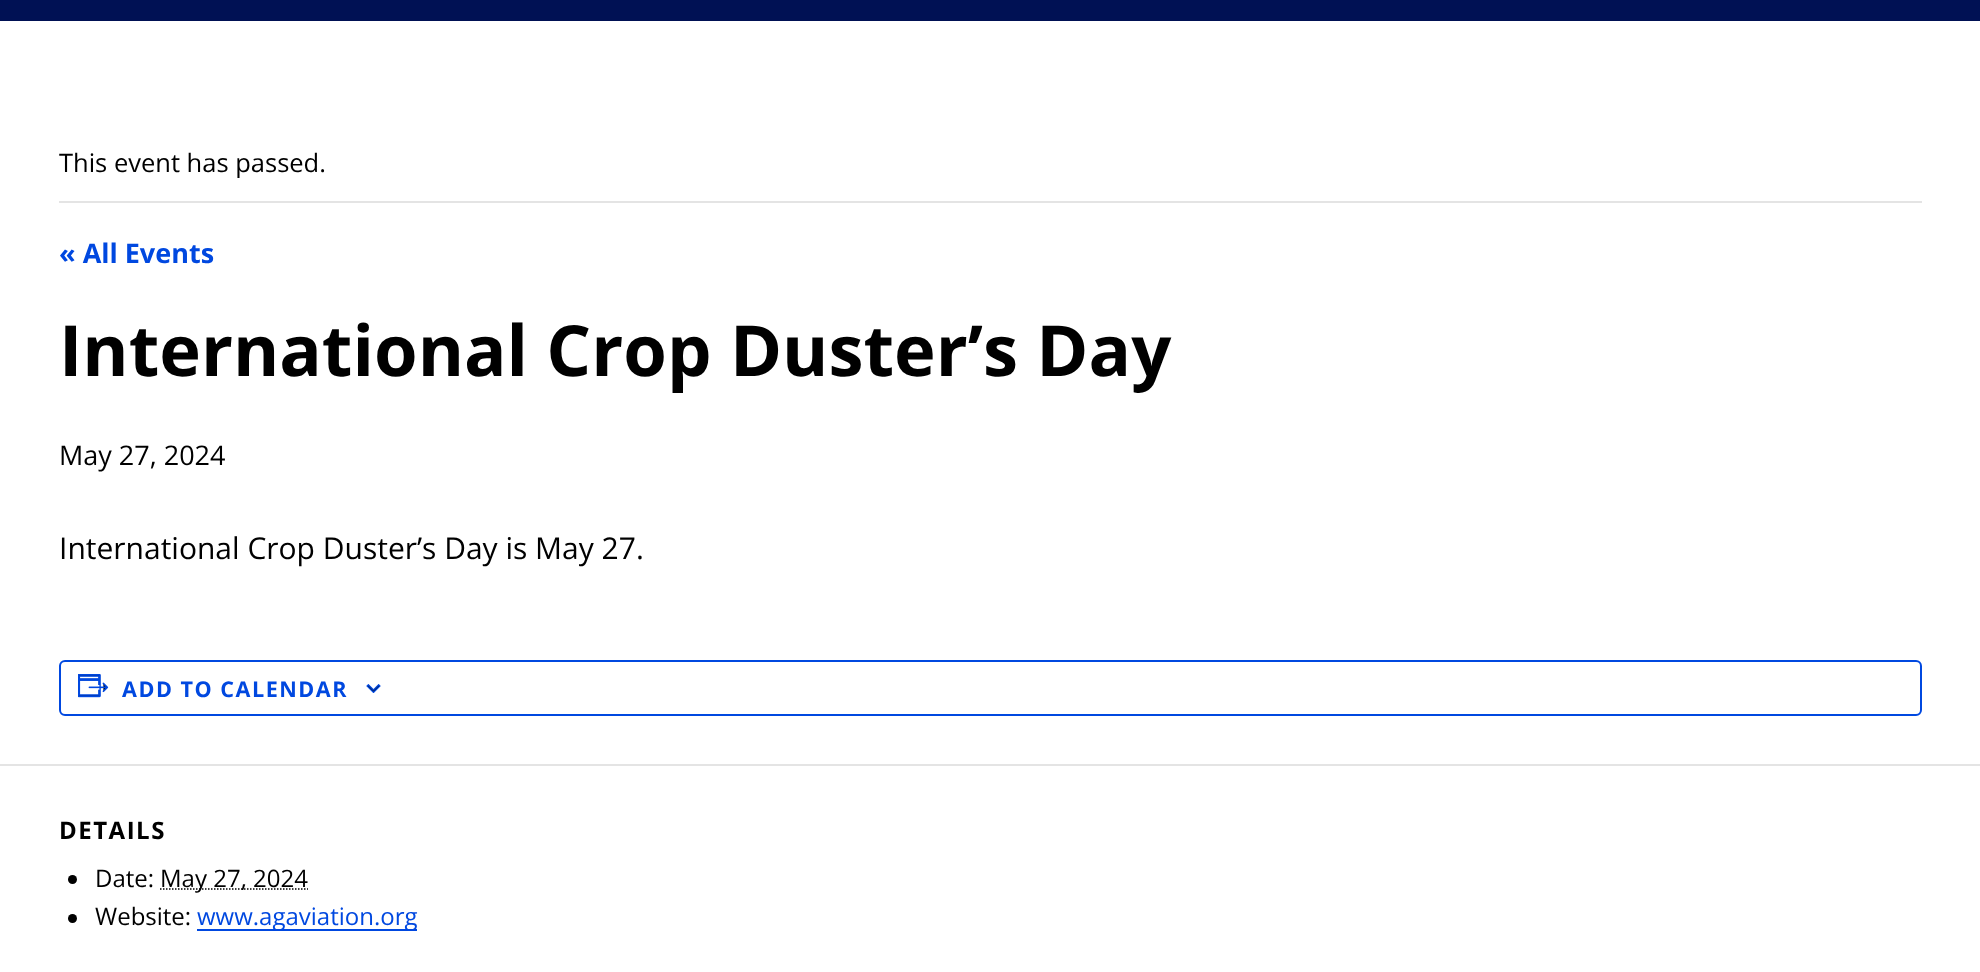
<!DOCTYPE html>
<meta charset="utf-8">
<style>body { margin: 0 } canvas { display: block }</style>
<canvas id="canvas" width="1980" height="972"></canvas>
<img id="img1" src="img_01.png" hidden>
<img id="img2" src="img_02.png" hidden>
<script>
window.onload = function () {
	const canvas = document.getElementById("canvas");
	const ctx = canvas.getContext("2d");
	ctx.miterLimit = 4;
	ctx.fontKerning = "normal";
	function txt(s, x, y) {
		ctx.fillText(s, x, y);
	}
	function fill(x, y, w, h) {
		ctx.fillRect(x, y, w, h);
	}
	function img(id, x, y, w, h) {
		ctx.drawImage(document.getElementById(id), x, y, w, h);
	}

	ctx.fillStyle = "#FFFFFF";
	fill(0, 0, 1980, 972);
	ctx.fillStyle = "#001154";
	fill(0, 0, 1980, 21);
	ctx.fillStyle = "#E4E4E4";
	fill(59, 201, 1863, 2);
	ctx.beginPath();
	ctx.roundRect(60, 661, 1861, 54, 5);
	ctx.strokeStyle = "#0048E0";
	ctx.lineWidth = 2;
	ctx.stroke();
	img("img1", 78, 674, 31, 24);
	img("img2", 366, 684, 15, 9);
	fill(0, 764, 1980, 2);
	ctx.fillStyle = "#000000";
	ctx.beginPath();
	ctx.arc(72.5, 879.5, 4.5, 0, Math.PI * 2);
	ctx.fill();
	ctx.beginPath();
	ctx.moveTo(160, 889);
	ctx.lineTo(308, 889);
	ctx.strokeStyle = "#000000";
	ctx.lineWidth = 1.5;
	ctx.setLineDash([1.5, 1.5]);
	ctx.stroke();
	ctx.beginPath();
	ctx.arc(72.5, 918.5, 4.5, 0, Math.PI * 2);
	ctx.fill();
	ctx.fillStyle = "#0048E0";
	fill(197, 929, 220, 2);
	ctx.font = "25.5px Open Sans";
	ctx.fillStyle = "#000000";
	txt("This event has passed.", 59, 172);
	ctx.font = "bold 27px Open Sans";
	ctx.fillStyle = "#0048E0";
	txt("« All Events", 59, 263);
	ctx.font = "bold 70.5px Open Sans";
	ctx.fillStyle = "#000000";
	txt("International Crop Duster’s Day", 59, 376);
	ctx.font = "27px Open Sans";
	txt("May 27, 2024", 59, 465);
	ctx.font = "30px Open Sans";
	txt("International Crop Duster’s Day is May 27.", 59, 559);
	ctx.letterSpacing = "1.5px";
	ctx.font = "bold 21.6px Open Sans";
	ctx.fillStyle = "#0048E0";
	txt("ADD TO CALENDAR", 122, 697);
	ctx.font = "bold 24px Open Sans";
	ctx.fillStyle = "#000000";
	txt("DETAILS", 59, 839);
	ctx.letterSpacing = "0px";
	ctx.font = "24px Open Sans";
	txt("Date:", 95, 887);
	txt("May 27, 2024", 160, 887);
	txt("Website:", 95, 925);
	ctx.fillStyle = "#0048E0";
	txt("www.agaviation.org", 197, 925);
};
</script>
